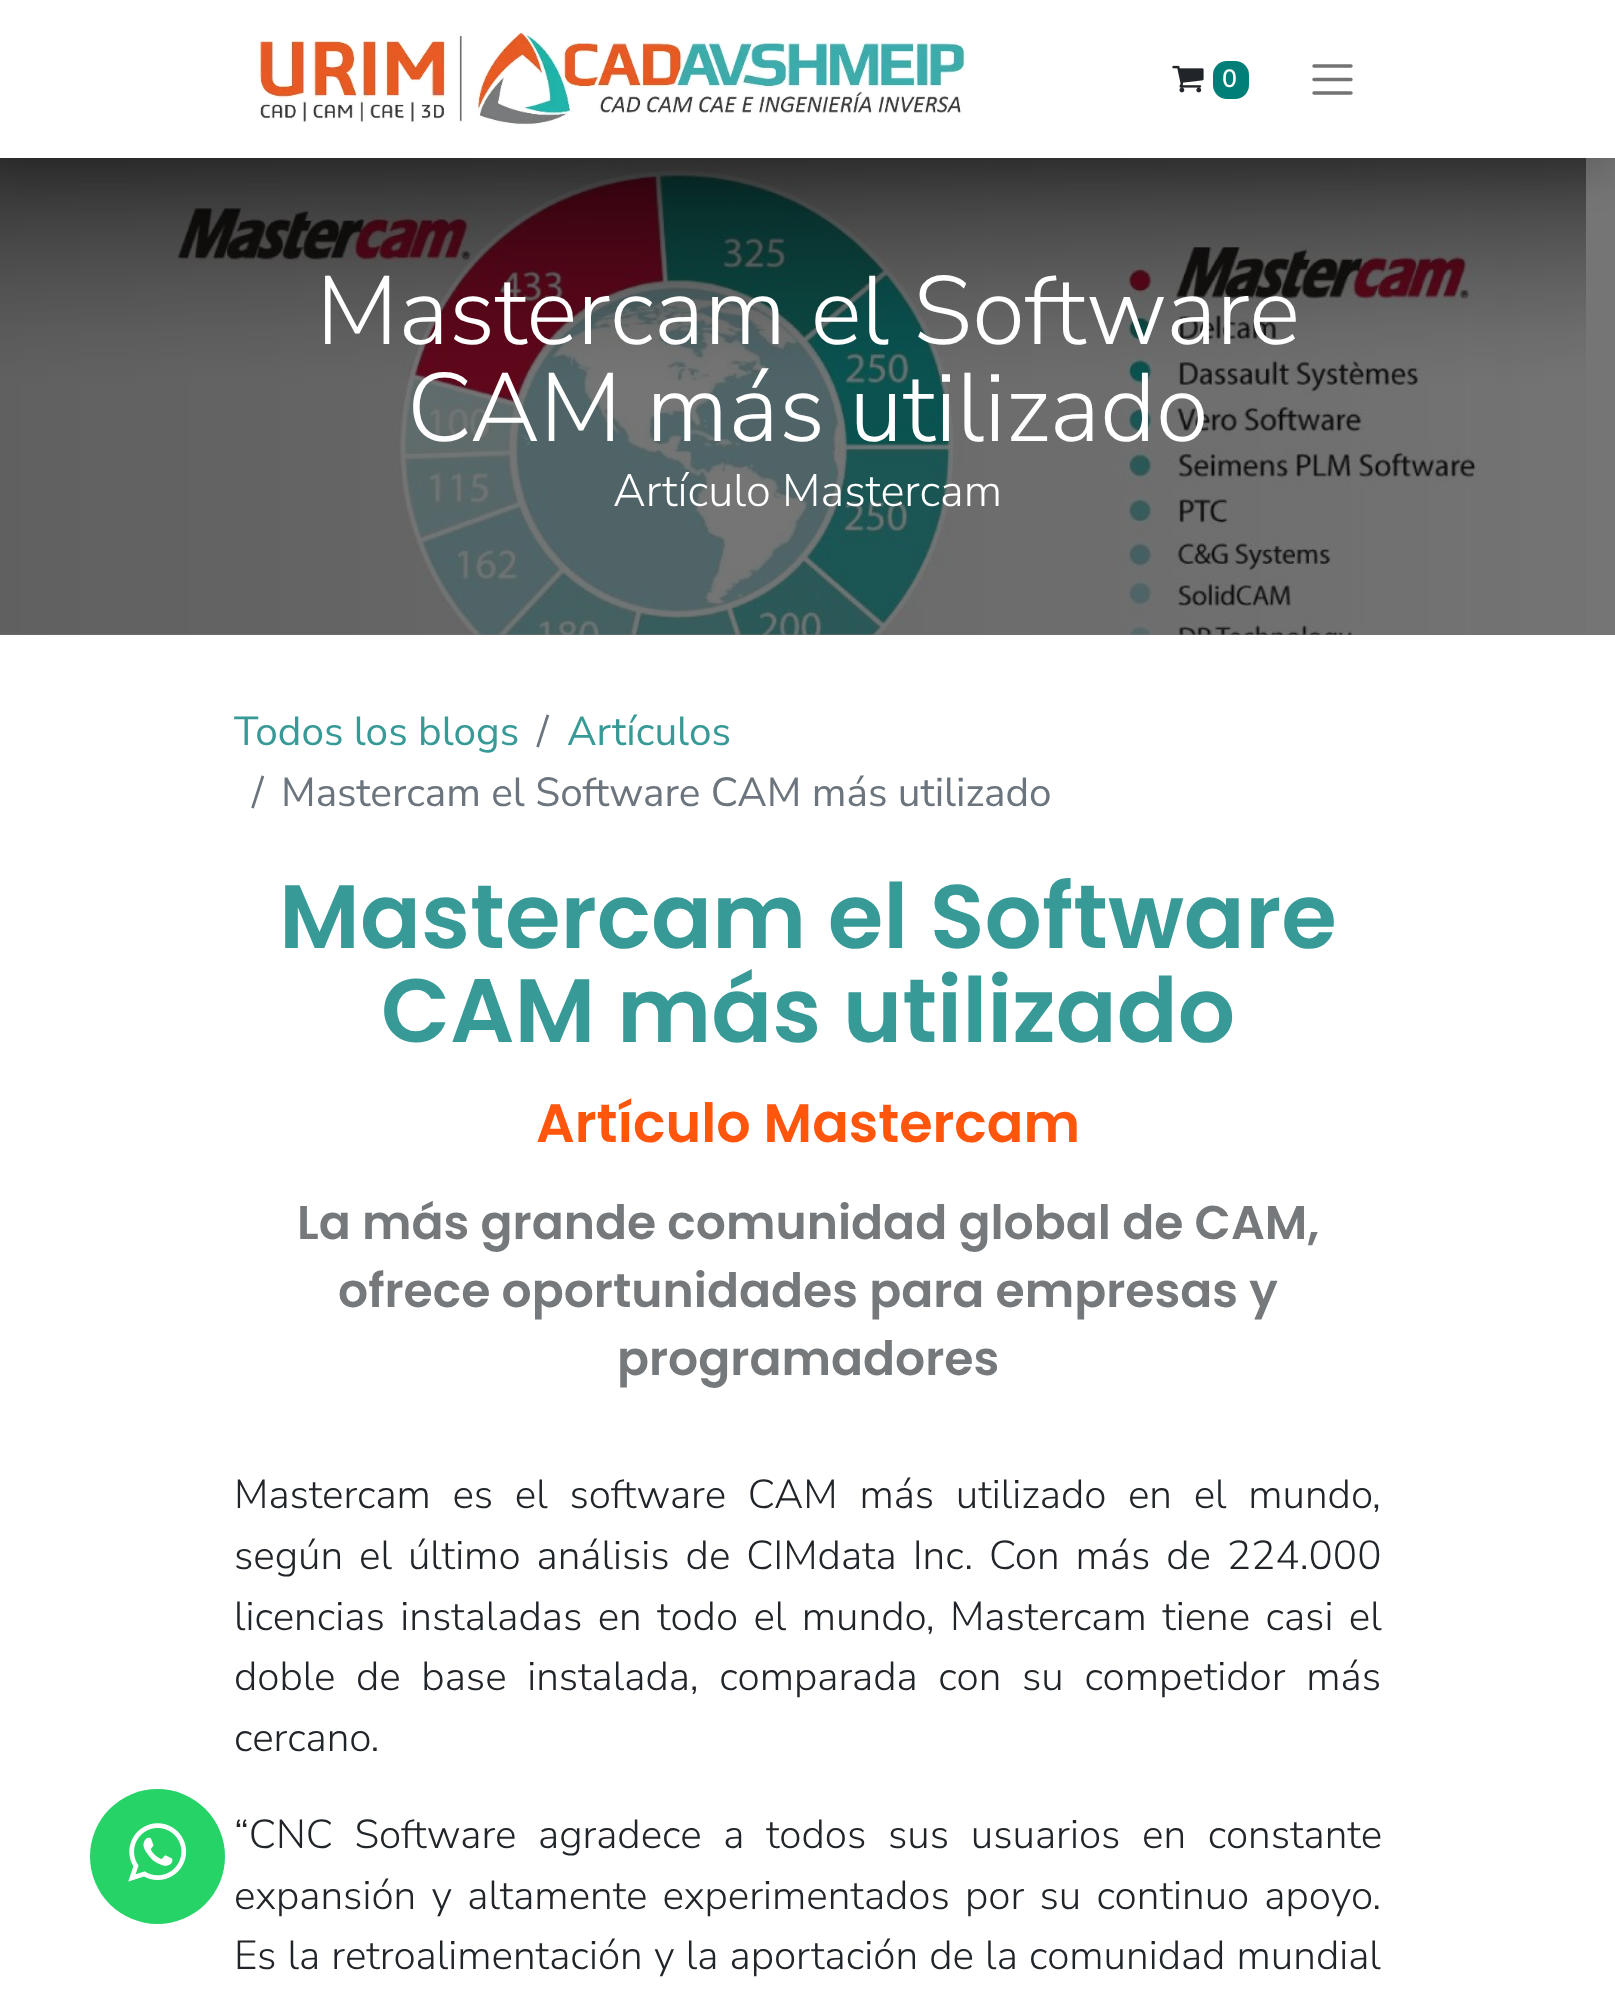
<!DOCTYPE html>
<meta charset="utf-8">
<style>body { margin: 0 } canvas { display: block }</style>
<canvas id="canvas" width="1615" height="2012"></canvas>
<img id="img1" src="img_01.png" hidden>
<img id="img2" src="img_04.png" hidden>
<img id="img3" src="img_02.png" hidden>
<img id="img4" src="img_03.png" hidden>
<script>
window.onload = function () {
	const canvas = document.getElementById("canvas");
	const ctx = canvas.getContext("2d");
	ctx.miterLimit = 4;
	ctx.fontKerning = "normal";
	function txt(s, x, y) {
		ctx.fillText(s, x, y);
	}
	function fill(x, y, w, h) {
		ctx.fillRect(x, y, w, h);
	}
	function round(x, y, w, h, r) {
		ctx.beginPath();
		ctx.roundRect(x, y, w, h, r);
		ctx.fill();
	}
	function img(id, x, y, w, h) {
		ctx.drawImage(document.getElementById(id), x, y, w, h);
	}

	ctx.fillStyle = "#FFFFFF";
	fill(0, 0, 1615, 2012);
	ctx.fillStyle = "#757575";
	fill(0, 158, 1615, 477);
	ctx.fillStyle = "#25D366";
	ctx.beginPath();
	ctx.arc(157.5, 1856.5, 67.5, 0, Math.PI * 2);
	ctx.fill();
	img("img1", 128, 1823, 59, 59);
	img("img2", 0, 158, 1586, 477);
	ctx.fillStyle = "rgba(0, 0, 0, 0.15)";
	ctx.filter = "blur(18px)";
	ctx.beginPath();
	ctx.rect(0, 18, 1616, 158);
	ctx.fill();
	ctx.filter = "none";
	ctx.fillStyle = "#FFFFFF";
	fill(0, 0, 1615, 158);
	img("img3", 259, 31, 707, 94);
	img("img4", 1172, 65, 32, 28);
	ctx.fillStyle = "#007E78";
	round(1213, 61, 36, 38, 14);
	ctx.beginPath();
	ctx.moveTo(1314, 66);
	ctx.lineTo(1351, 66);
	ctx.moveTo(1314, 79.5);
	ctx.lineTo(1351, 79.5);
	ctx.moveTo(1314, 93);
	ctx.lineTo(1351, 93);
	ctx.strokeStyle = "#737373";
	ctx.lineWidth = 3.4;
	ctx.lineCap = "round";
	ctx.stroke();
	ctx.font = "600 25px Nunito Sans";
	ctx.fillStyle = "#FFFFFF";
	txt("0", 1222, 87);
	ctx.font = "300 96.75px Nunito Sans";
	txt("Mastercam el Software", 316, 344);
	txt("CAM más utilizado", 407, 441);
	ctx.font = "300 45.25px Nunito Sans";
	txt("Artículo Mastercam", 613, 506);
	ctx.font = "40.5px Nunito Sans";
	ctx.fillStyle = "#389A96";
	txt("Todos los blogs", 234, 745);
	ctx.fillStyle = "#6C757D";
	txt("/", 537, 745);
	ctx.fillStyle = "#389A96";
	txt("Artículos", 567, 745);
	ctx.fillStyle = "#6C757D";
	txt("/", 252, 806);
	txt("Mastercam el Software CAM más utilizado", 281, 806);
	ctx.font = "600 90px Poppins";
	ctx.fillStyle = "#389A96";
	txt("Mastercam el Software", 279, 948);
	txt("CAM más utilizado", 381, 1042);
	ctx.font = "600 54px Poppins";
	ctx.fillStyle = "#FF550D";
	txt("Artículo Mastercam", 536, 1142);
	ctx.font = "600 47.25px Poppins";
	ctx.fillStyle = "#75797C";
	txt("La más grande comunidad global de CAM,", 297, 1239);
	txt("ofrece oportunidades para empresas y", 338, 1307);
	txt("programadores", 617, 1375);
	ctx.wordSpacing = "11.5px";
	ctx.font = "300 40.5px Nunito Sans";
	ctx.fillStyle = "#212529";
	txt("Mastercam es el software CAM más utilizado en el mundo,", 234, 1508);
	ctx.wordSpacing = "5.75px";
	txt("según el último análisis de CIMdata Inc. Con más de 224.000", 234, 1569);
	ctx.wordSpacing = "5.25px";
	txt("licencias instaladas en todo el mundo, Mastercam tiene casi el", 234, 1630);
	ctx.wordSpacing = "10.5px";
	txt("doble de base instalada, comparada con su competidor más", 234, 1690);
	ctx.wordSpacing = "0px";
	txt("cercano.", 234, 1751);
	ctx.wordSpacing = "11.5px";
	txt("“CNC Software agradece a todos sus usuarios en constante", 234, 1848);
	ctx.wordSpacing = "5px";
	txt("expansión y altamente experimentados por su continuo apoyo.", 234, 1909);
	ctx.wordSpacing = "1px";
	txt("Es la retroalimentación y la aportación de la comunidad mundial", 234, 1969);
};
</script>
